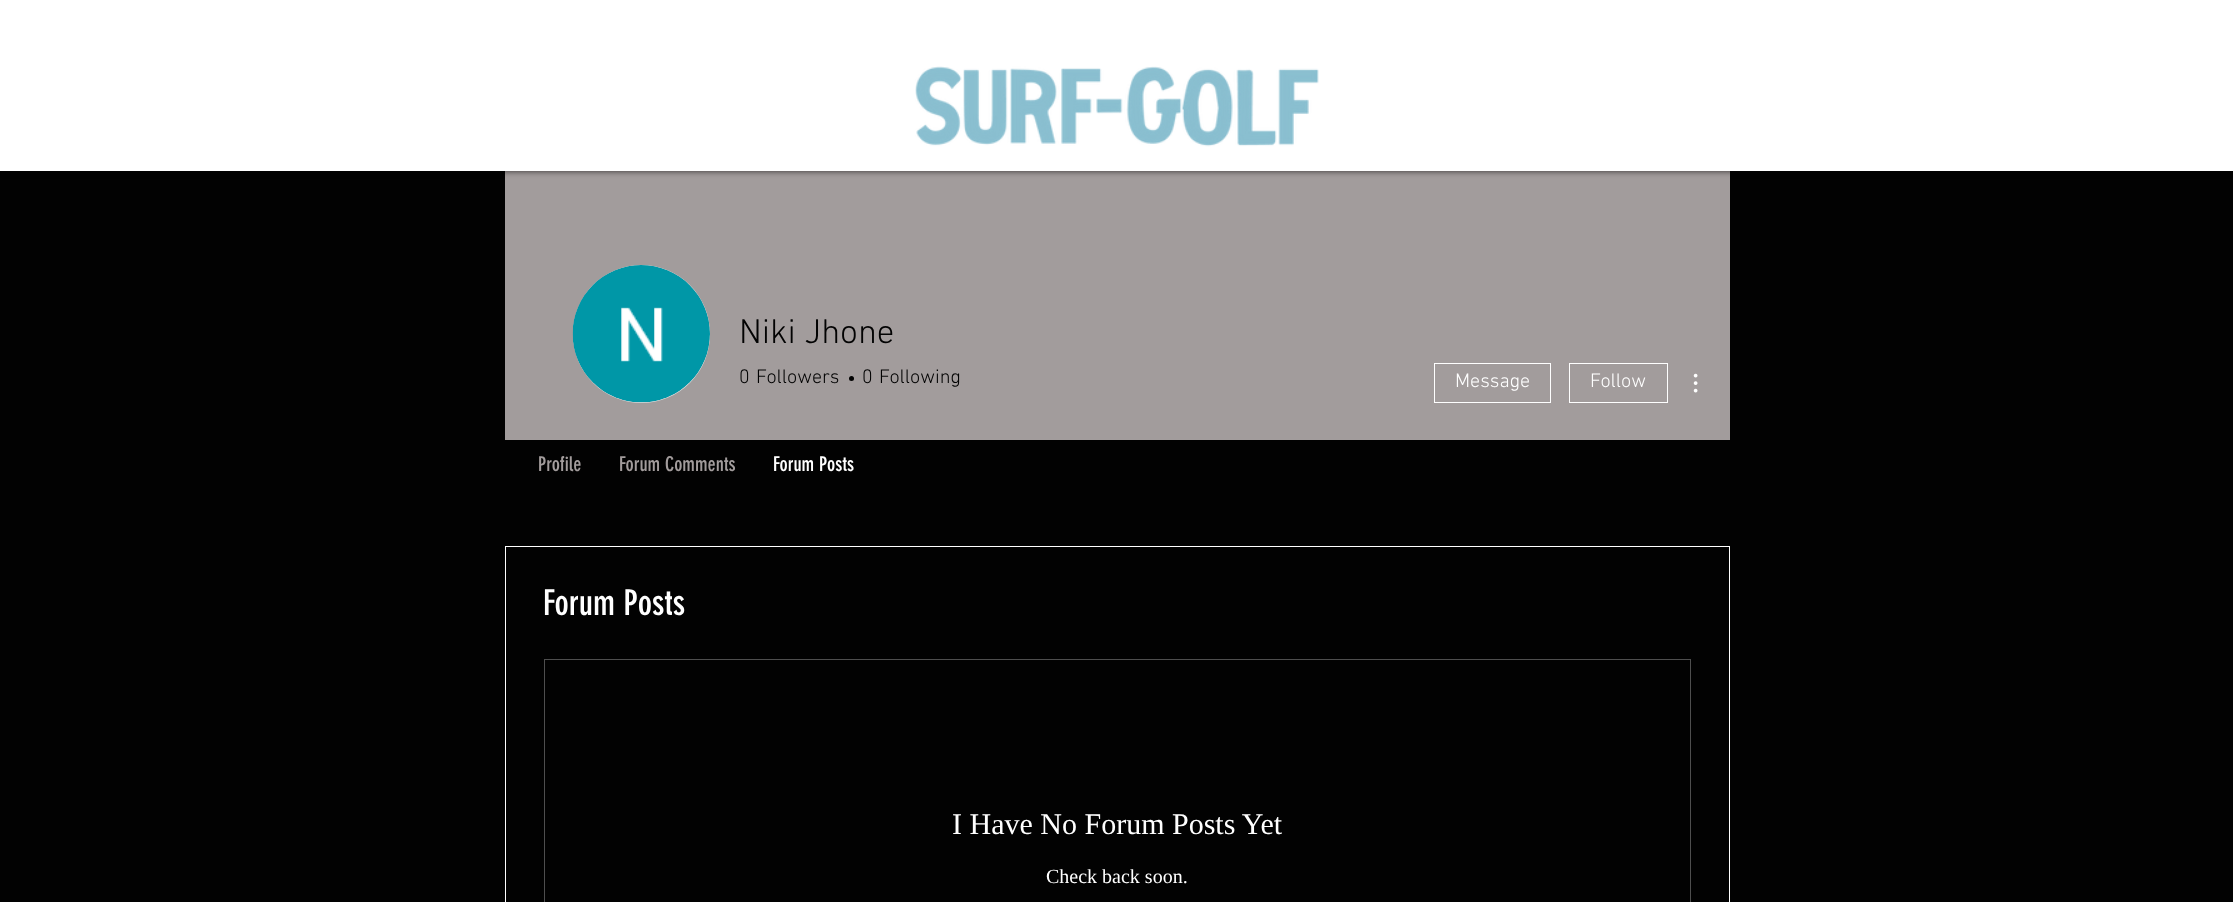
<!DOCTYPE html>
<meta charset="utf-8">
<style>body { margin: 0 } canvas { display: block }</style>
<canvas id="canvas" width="2233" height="902"></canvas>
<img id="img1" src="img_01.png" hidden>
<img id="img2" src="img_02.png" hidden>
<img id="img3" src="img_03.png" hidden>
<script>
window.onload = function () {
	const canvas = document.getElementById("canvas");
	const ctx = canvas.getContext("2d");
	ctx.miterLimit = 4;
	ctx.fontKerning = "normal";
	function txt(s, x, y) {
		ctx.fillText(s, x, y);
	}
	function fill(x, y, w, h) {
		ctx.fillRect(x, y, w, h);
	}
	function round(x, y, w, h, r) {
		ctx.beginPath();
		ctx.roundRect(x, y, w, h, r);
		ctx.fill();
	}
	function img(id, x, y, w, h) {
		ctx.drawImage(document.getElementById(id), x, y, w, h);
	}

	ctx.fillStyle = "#020202";
	fill(0, 0, 2233, 902);
	ctx.fillStyle = "#A29C9C";
	fill(505, 171, 1225, 269);
	ctx.fillStyle = "rgba(0, 0, 0, 0.7)";
	ctx.filter = "blur(3px)";
	ctx.beginPath();
	ctx.rect(0, 0, 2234, 171);
	ctx.fill();
	ctx.filter = "none";
	ctx.fillStyle = "#FFFFFF";
	fill(0, 0, 2233, 171);
	img("img1", 915, 66, 404, 81);
	ctx.fillStyle = "#D8D8D8";
	round(573, 265, 137, 138, 68.5);
	img("img2", 572, 265, 138, 138);
	ctx.fillStyle = "#020202";
	ctx.beginPath();
	ctx.arc(851.5, 378.5, 2.5, 0, Math.PI * 2);
	ctx.fill();
	ctx.strokeStyle = "#FFFFFF";
	ctx.strokeRect(1434.5, 363.5, 116, 39);
	ctx.strokeRect(1569.5, 363.5, 98, 39);
	img("img3", 1693, 373, 5, 20);
	ctx.strokeRect(505.5, 546.5, 1224, 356);
	ctx.strokeStyle = "#4E4E4E";
	ctx.strokeRect(544.5, 659.5, 1146, 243);
	ctx.font = "300 35px 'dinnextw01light'";
	txt("Niki Jhone", 739, 343);
	ctx.font = "300 20px 'dinnextw01light'";
	txt("0", 739, 383);
	txt("Followers", 756, 383);
	txt("0", 862, 383);
	txt("Following", 879, 383);
	ctx.fillStyle = "#FFFFFF";
	txt("Message", 1455, 387);
	txt("Follow", 1590, 387);
	ctx.font = "20px 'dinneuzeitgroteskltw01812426'";
	ctx.fillStyle = "#A29C9C";
	txt("Profile", 538, 471);
	txt("Forum Comments", 619, 471);
	ctx.fillStyle = "#FFFFFF";
	txt("Forum Posts", 773, 471);
	ctx.font = "35px 'dinneuzeitgroteskltw01812426'";
	txt("Forum Posts", 543, 615);
	ctx.font = "30px Liberation Serif";
	txt("I Have No Forum Posts Yet", 952, 834);
	ctx.font = "20px Liberation Serif";
	txt("Check back soon.", 1046, 883);
};
</script>
